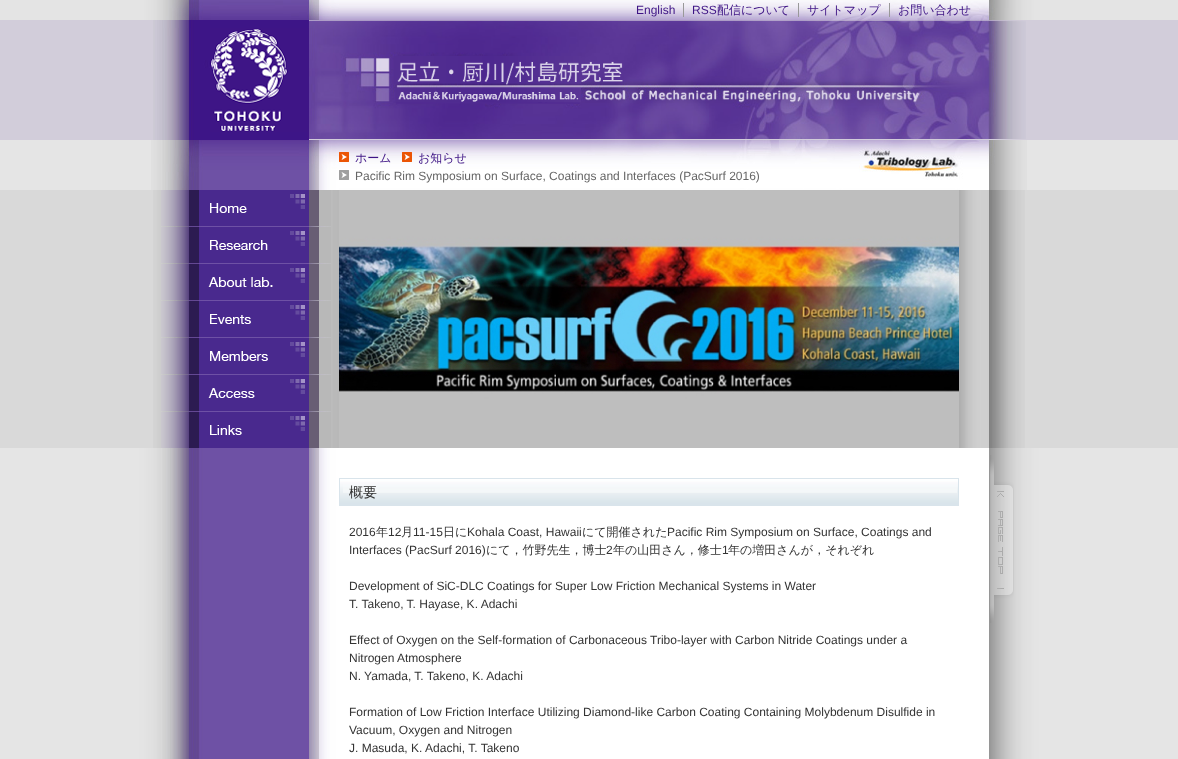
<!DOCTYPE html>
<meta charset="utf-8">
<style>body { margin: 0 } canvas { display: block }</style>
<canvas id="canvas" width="1178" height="759"></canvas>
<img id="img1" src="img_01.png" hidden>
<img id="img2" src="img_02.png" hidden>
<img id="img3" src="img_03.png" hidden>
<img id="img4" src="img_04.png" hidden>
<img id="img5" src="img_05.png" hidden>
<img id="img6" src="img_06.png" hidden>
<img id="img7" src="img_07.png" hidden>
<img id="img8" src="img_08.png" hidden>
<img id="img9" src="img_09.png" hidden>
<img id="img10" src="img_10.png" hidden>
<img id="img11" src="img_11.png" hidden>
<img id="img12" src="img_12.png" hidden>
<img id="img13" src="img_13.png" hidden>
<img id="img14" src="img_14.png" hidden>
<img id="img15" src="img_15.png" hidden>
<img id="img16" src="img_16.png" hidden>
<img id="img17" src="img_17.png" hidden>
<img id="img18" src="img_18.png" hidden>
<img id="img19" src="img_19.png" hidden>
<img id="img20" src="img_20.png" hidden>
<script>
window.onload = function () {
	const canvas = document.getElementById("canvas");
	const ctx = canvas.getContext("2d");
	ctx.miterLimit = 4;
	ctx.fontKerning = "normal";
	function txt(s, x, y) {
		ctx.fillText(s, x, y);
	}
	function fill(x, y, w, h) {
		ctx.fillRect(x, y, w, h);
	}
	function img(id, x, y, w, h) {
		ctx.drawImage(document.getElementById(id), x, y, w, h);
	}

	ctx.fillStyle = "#E5E5E5";
	fill(0, 0, 1178, 759);
	img("img1", 0, 0, 1178, 140);
	img("img2", 139, 0, 900, 20);
	ctx.fillStyle = "#999999";
	fill(683, 3, 1, 14);
	fill(798, 3, 1, 14);
	fill(889, 3, 1, 14);
	img("img3", 153, 20, 156, 120);
	img("img4", 210, 28, 99, 104);
	img("img5", 309, 20, 717, 119);
	img("img6", 151, 140, 876, 50);
	img("img7", 339, 152, 10, 10);
	img("img7", 402, 152, 10, 10);
	img("img8", 339, 170, 10, 10);
	ctx.fillStyle = "#D9D9D9";
	fill(0, 190, 1178, 258);
	img("img9", 153, 190, 872, 258);
	img("img10", 161, 190, 170, 36);
	img("img11", 161, 227, 170, 36);
	img("img12", 161, 264, 170, 36);
	img("img13", 161, 301, 170, 36);
	img("img14", 161, 338, 170, 36);
	img("img15", 161, 375, 170, 36);
	img("img16", 161, 412, 170, 36);
	img("img17", 339, 190, 620, 258);
	img("img18", 139, 448, 900, 311);
	img("img19", 339, 478, 620, 28);
	img("img20", 990, 455, 24, 168);
	ctx.font = "12px Liberation Sans";
	ctx.fillStyle = "#3E1485";
	txt("English", 636, 14);
	txt("RSS", 692, 14);
	ctx.font = "500 12px WenQuanYi Zen Hei";
	txt("配信について", 717, 14);
	txt("サイトマップ", 807, 14);
	txt("お問い合わせ", 898, 14);
	txt("ホーム", 355, 162);
	txt("お知らせ", 418, 162);
	ctx.font = "12px Liberation Sans";
	ctx.fillStyle = "#666666";
	txt("Pacific Rim Symposium on Surface, Coatings and Interfaces (PacSurf 2016)", 355, 180);
	ctx.font = "500 14px WenQuanYi Zen Hei";
	ctx.fillStyle = "#333333";
	txt("概要", 349, 497);
	ctx.font = "12px Liberation Sans";
	txt("2016", 349, 536);
	ctx.font = "500 12px WenQuanYi Zen Hei";
	txt("年", 376, 536);
	ctx.font = "12px Liberation Sans";
	txt("12", 388, 536);
	ctx.font = "500 12px WenQuanYi Zen Hei";
	txt("月", 401, 536);
	ctx.font = "12px Liberation Sans";
	txt("11-15", 413, 536);
	ctx.font = "500 12px WenQuanYi Zen Hei";
	txt("日に", 443, 536);
	ctx.font = "12px Liberation Sans";
	txt("Kohala Coast, Hawaii", 467, 536);
	ctx.font = "500 12px WenQuanYi Zen Hei";
	txt("にて開催された", 582, 536);
	ctx.font = "12px Liberation Sans";
	txt("Pacific Rim Symposium on Surface, Coatings and", 667, 536);
	txt("Interfaces (PacSurf 2016)", 349, 554);
	ctx.font = "500 12px WenQuanYi Zen Hei";
	txt("にて，竹野先生，博士", 486, 554);
	ctx.font = "12px Liberation Sans";
	txt("2", 606, 554);
	ctx.font = "500 12px WenQuanYi Zen Hei";
	txt("年の山田さん，修士", 613, 554);
	ctx.font = "12px Liberation Sans";
	txt("1", 722, 554);
	ctx.font = "500 12px WenQuanYi Zen Hei";
	txt("年の増田さんが，それぞれ", 728, 554);
	ctx.font = "12px Liberation Sans";
	txt("Development of SiC-DLC Coatings for Super Low Friction Mechanical Systems in Water", 349, 590);
	txt("T. Takeno, T. Hayase, K. Adachi", 349, 608);
	txt("Effect of Oxygen on the Self-formation of Carbonaceous Tribo-layer with Carbon Nitride Coatings under a", 349, 644);
	txt("Nitrogen Atmosphere", 349, 662);
	txt("N. Yamada, T. Takeno, K. Adachi", 349, 680);
	txt("Formation of Low Friction Interface Utilizing Diamond-like Carbon Coating Containing Molybdenum Disulfide in", 349, 716);
	txt("Vacuum, Oxygen and Nitrogen", 349, 734);
	txt("J. Masuda, K. Adachi, T. Takeno", 349, 752);
};
</script>
